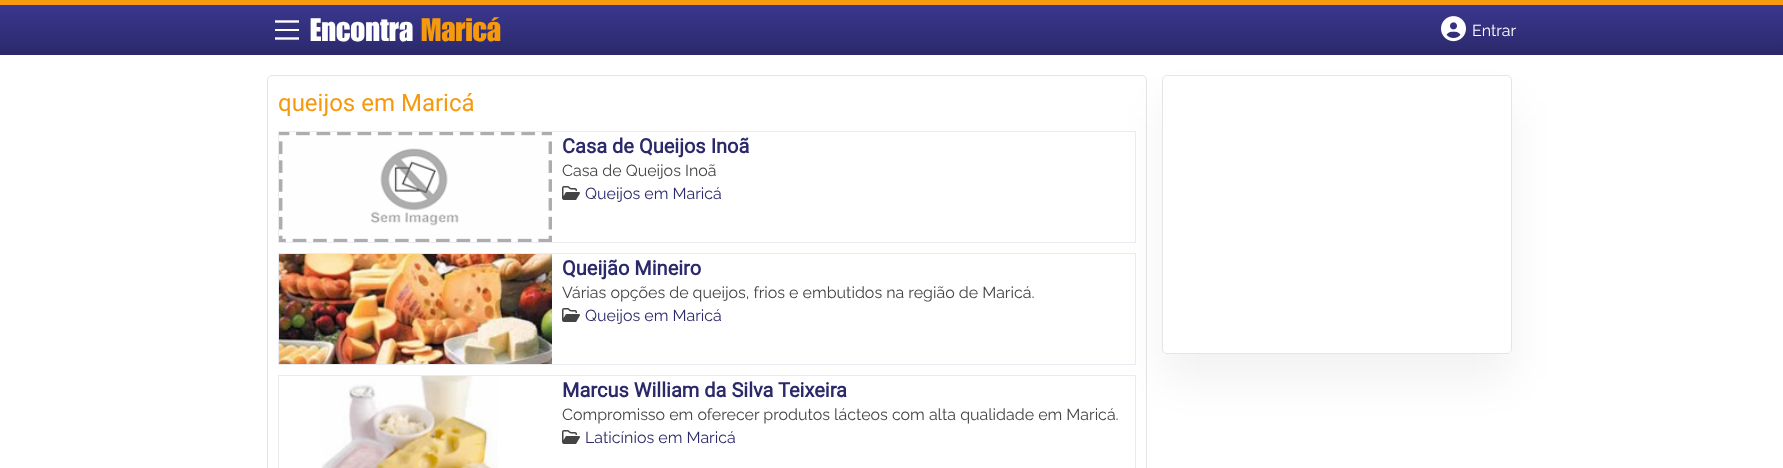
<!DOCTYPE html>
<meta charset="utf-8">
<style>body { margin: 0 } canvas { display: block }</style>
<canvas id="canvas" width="1783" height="468"></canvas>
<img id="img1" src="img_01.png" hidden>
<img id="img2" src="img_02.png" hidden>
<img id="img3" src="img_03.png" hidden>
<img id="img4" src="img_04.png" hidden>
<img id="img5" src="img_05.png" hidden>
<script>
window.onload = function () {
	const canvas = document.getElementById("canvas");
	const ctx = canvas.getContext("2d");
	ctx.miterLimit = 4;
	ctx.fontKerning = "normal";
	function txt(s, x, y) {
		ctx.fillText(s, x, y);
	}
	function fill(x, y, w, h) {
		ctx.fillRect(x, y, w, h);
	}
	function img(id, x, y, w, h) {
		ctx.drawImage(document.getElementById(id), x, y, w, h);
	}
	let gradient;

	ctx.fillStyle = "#FFFFFF";
	fill(0, 0, 1783, 468);
	ctx.beginPath();
	ctx.roundRect(267.5, 75.5, 879, 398, 4.5);
	ctx.strokeStyle = "#E5E5E5";
	ctx.stroke();
	ctx.save();
	ctx.beginPath();
	ctx.moveTo(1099, 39);
	ctx.lineTo(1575, 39);
	ctx.lineTo(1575, 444);
	ctx.lineTo(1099, 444);
	ctx.closePath();
	ctx.moveTo(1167, 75);
	ctx.lineTo(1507, 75);
	ctx.bezierCurveTo(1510, 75, 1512, 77, 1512, 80);
	ctx.lineTo(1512, 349);
	ctx.bezierCurveTo(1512, 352, 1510, 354, 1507, 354);
	ctx.lineTo(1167, 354);
	ctx.bezierCurveTo(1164, 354, 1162, 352, 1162, 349);
	ctx.lineTo(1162, 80);
	ctx.bezierCurveTo(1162, 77, 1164, 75, 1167, 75);
	ctx.closePath();
	ctx.clip("evenodd");
	ctx.fillStyle = "rgba(0, 0, 0, 0.05)";
	ctx.filter = "blur(20.5px)";
	ctx.beginPath();
	ctx.roundRect(1162, 102, 350, 279, 5);
	ctx.fill();
	ctx.filter = "none";
	ctx.restore();
	gradient = ctx.createLinearGradient(892, 5, 892, 55);
	gradient.addColorStop(0, "#3A378F");
	gradient.addColorStop(1, "#2B296A");
	ctx.fillStyle = gradient;
	fill(0, 5, 1783, 50);
	ctx.fillStyle = "#F6990D";
	fill(0, 0, 1783, 5);
	ctx.beginPath();
	ctx.moveTo(275, 21.5);
	ctx.lineTo(299, 21.5);
	ctx.strokeStyle = "#FEFEFE";
	ctx.lineWidth = 2.4;
	ctx.stroke();
	ctx.fillStyle = "#FEFEFE";
	fill(275, 29, 24, 2);
	ctx.beginPath();
	ctx.moveTo(275, 38.5);
	ctx.lineTo(299, 38.5);
	ctx.stroke();
	img("img1", 1441, 16, 25, 26);
	ctx.strokeStyle = "#EAEAF0";
	ctx.lineWidth = 1;
	ctx.strokeRect(278.5, 131.5, 857, 111);
	img("img2", 279, 132, 273, 110);
	img("img3", 562, 186, 18, 14);
	ctx.strokeRect(278.5, 253.5, 857, 111);
	img("img4", 279, 254, 273, 110);
	img("img3", 562, 308, 18, 14);
	ctx.strokeRect(278.5, 375.5, 857, 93);
	img("img5", 321, 376, 177, 92);
	img("img3", 562, 430, 18, 14);
	ctx.beginPath();
	ctx.roundRect(1162.5, 75.5, 349, 278, 4.5);
	ctx.strokeStyle = "rgba(0, 0, 0, 0.1)";
	ctx.stroke();
	ctx.font = "500 32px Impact";
	txt("Encontra", 310, 41);
	ctx.fillStyle = "#F6990D";
	txt("Maricá", 421, 41);
	ctx.font = "16px Raleway";
	ctx.fillStyle = "#FEFEFE";
	txt("Entrar", 1472, 36);
	ctx.font = "24px Roboto";
	ctx.fillStyle = "#F6990D";
	txt("queijos em Maricá", 278, 111);
	ctx.font = "bold 20px Roboto";
	ctx.fillStyle = "#2B296A";
	txt("Casa de Queijos Inoã", 562, 153);
	ctx.font = "16px Raleway";
	ctx.fillStyle = "#444444";
	txt("Casa de Queijos Inoã", 562, 176);
	ctx.fillStyle = "#2B296A";
	txt("Queijos em Maricá", 585, 199);
	ctx.font = "bold 20px Roboto";
	txt("Queijão Mineiro", 562, 275);
	ctx.font = "16px Raleway";
	ctx.fillStyle = "#444444";
	txt("Várias opções de queijos, frios e embutidos na região de Maricá.", 562, 298);
	ctx.fillStyle = "#2B296A";
	txt("Queijos em Maricá", 585, 321);
	ctx.font = "bold 20px Roboto";
	txt("Marcus William da Silva Teixeira", 562, 397);
	ctx.font = "16px Raleway";
	ctx.fillStyle = "#444444";
	txt("Compromisso em oferecer produtos lácteos com alta qualidade em Maricá.", 562, 420);
	ctx.fillStyle = "#2B296A";
	txt("Laticínios em Maricá", 585, 443);
};
</script>
